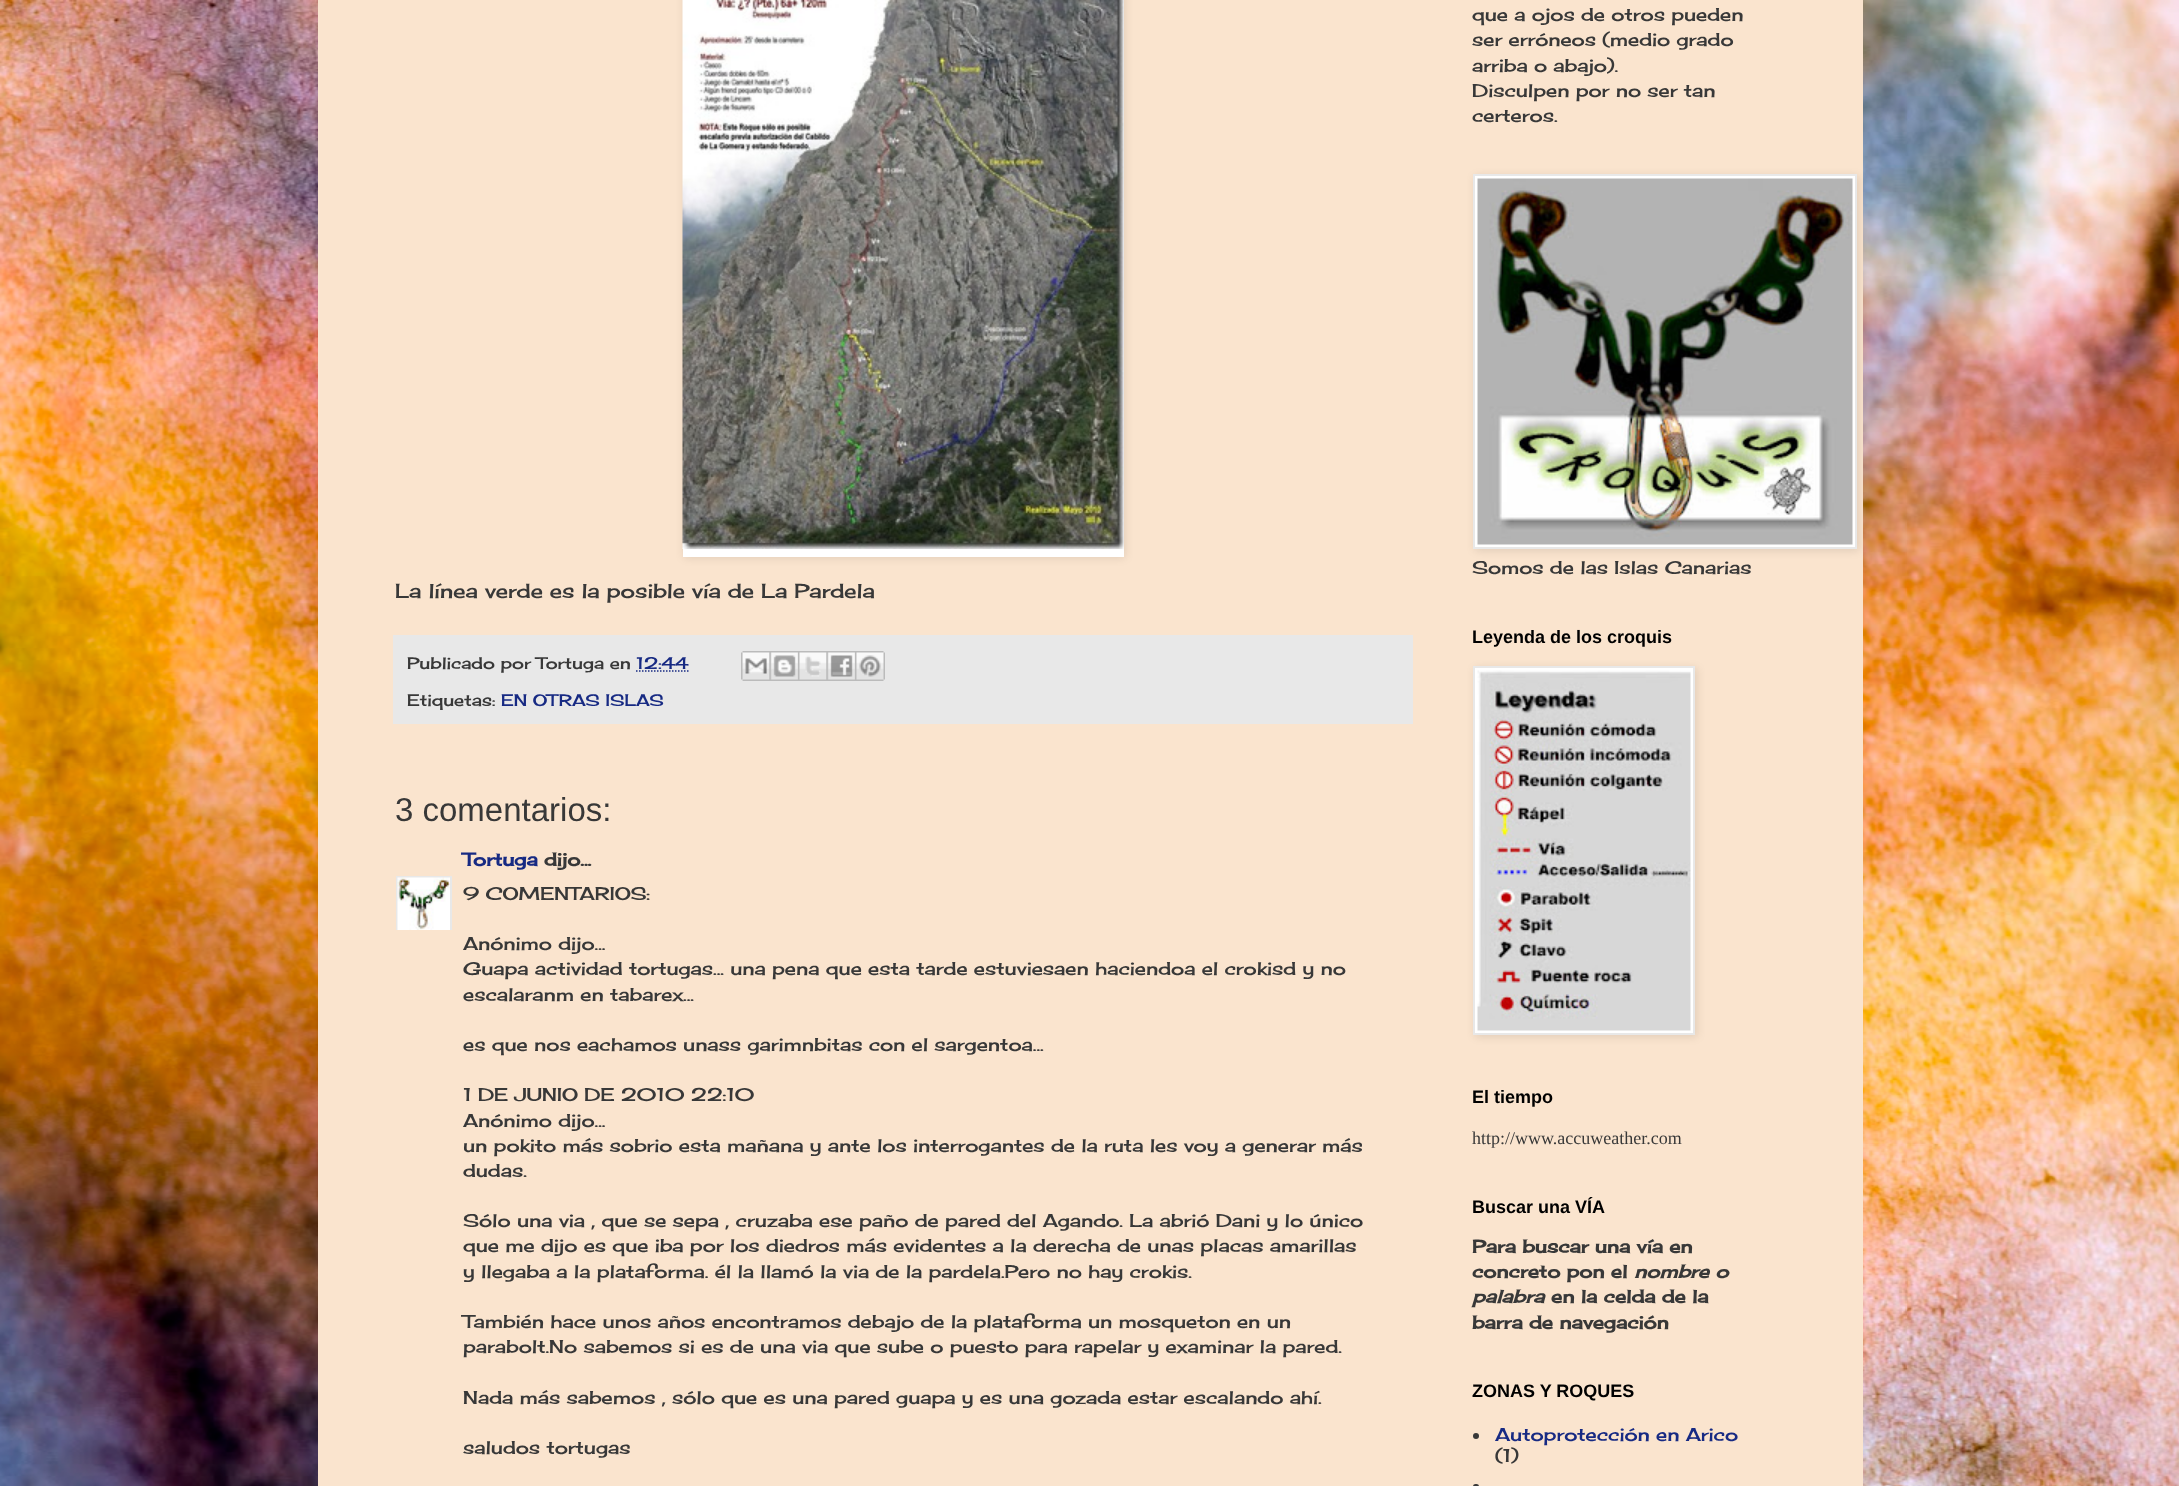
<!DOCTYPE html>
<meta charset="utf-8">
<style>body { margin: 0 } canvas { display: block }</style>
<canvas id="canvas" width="2179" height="1486"></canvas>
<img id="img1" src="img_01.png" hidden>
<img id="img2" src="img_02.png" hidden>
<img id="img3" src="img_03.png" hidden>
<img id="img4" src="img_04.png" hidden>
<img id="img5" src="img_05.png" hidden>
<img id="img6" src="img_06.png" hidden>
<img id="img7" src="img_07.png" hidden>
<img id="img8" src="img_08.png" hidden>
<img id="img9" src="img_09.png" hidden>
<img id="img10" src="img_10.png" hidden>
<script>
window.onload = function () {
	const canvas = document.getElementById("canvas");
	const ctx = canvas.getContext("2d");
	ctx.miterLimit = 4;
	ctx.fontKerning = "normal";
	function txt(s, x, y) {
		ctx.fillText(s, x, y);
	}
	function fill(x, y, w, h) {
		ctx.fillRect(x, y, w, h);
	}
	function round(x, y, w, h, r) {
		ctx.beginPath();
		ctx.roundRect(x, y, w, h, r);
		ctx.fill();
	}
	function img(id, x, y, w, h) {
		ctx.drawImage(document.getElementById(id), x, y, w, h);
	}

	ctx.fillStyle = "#FFFFFF";
	fill(0, 0, 2179, 1486);
	img("img1", 0, 0, 2179, 1486);
	ctx.fillStyle = "#FAE4CE";
	fill(318, 0, 1545, 1486);
	ctx.fillStyle = "rgba(0, 0, 0, 0.1)";
	ctx.filter = "blur(4px)";
	ctx.beginPath();
	ctx.rect(684, -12, 441, 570);
	ctx.fill();
	ctx.filter = "none";
	ctx.fillStyle = "#FFFFFF";
	fill(683, 0, 441, 557);
	img("img2", 682, 0, 442, 549);
	ctx.fillStyle = "#E8E8E8";
	fill(393, 635, 1020, 89);
	ctx.beginPath();
	ctx.moveTo(636, 671);
	ctx.lineTo(688.5, 671);
	ctx.strokeStyle = "#172A83";
	ctx.lineWidth = 1.5;
	ctx.setLineDash([1.5, 1.5]);
	ctx.stroke();
	img("img3", 741, 651, 29, 30);
	img("img4", 769, 651, 29, 30);
	img("img5", 798, 651, 29, 30);
	img("img6", 826, 651, 29, 30);
	img("img7", 855, 651, 30, 30);
	ctx.save();
	ctx.beginPath();
	ctx.rect(396, 876, 56, 54);
	ctx.clip();
	ctx.strokeStyle = "#E8E8E8";
	ctx.lineWidth = 2;
	ctx.setLineDash([]);
	ctx.strokeRect(397, 877, 54, 54);
	ctx.restore();
	img("img8", 397, 877, 53, 53);
	ctx.fillStyle = "rgba(0, 0, 0, 0.1)";
	ctx.filter = "blur(4px)";
	ctx.beginPath();
	ctx.rect(1475, 176, 384, 375);
	ctx.fill();
	ctx.filter = "none";
	ctx.fillStyle = "#FFFFFF";
	ctx.beginPath();
	ctx.rect(1474, 175, 382, 373);
	ctx.fill();
	ctx.strokeStyle = "#E8E8E8";
	ctx.lineWidth = 2;
	ctx.setLineDash([]);
	ctx.stroke();
	img("img9", 1477, 178, 376, 367);
	ctx.fillStyle = "rgba(0, 0, 0, 0.1)";
	ctx.filter = "blur(4px)";
	ctx.beginPath();
	ctx.rect(1475, 668, 222, 369);
	ctx.fill();
	ctx.filter = "none";
	ctx.fillStyle = "#FFFFFF";
	ctx.beginPath();
	ctx.rect(1474, 667, 220, 367);
	ctx.fill();
	ctx.stroke();
	img("img10", 1477, 670, 214, 361);
	ctx.fillStyle = "#383838";
	ctx.beginPath();
	ctx.arc(1476, 1436, 3, 0, Math.PI * 2);
	ctx.fill();
	round(1473, 1484, 6, 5, 3);
	ctx.font = "19.8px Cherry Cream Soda";
	txt("La línea verde es la posible vía de La Pardela", 395, 598);
	ctx.font = "16.25px Cherry Cream Soda";
	txt("Publicado por Tortuga en", 407, 669);
	ctx.fillStyle = "#172A83";
	txt("12:44", 636, 669);
	ctx.fillStyle = "#383838";
	txt("Etiquetas:", 407, 706);
	ctx.fillStyle = "#172A83";
	txt("EN OTRAS ISLAS", 501, 706);
	ctx.font = "33px Liberation Sans";
	ctx.fillStyle = "#383838";
	txt("3 comentarios:", 395, 821);
	ctx.font = "bold 18px Cherry Cream Soda";
	ctx.fillStyle = "#172A83";
	txt("Tortuga", 463, 866);
	ctx.fillStyle = "#383838";
	txt("dijo...", 544, 866);
	ctx.font = "18px Cherry Cream Soda";
	txt("9 COMENTARIOS:", 463, 900);
	txt("Anónimo dijo...", 463, 950);
	txt("Guapa actividad tortugas... una pena que esta tarde estuviesaen haciendoa el crokisd y no", 463, 975);
	txt("escalaranm en tabarex...", 463, 1001);
	txt("es que nos eachamos unass garimnbitas con el sargentoa...", 463, 1051);
	txt("1 DE JUNIO DE 2010 22:10", 463, 1101);
	txt("Anónimo dijo...", 463, 1127);
	txt("un pokito más sobrio esta mañana y ante los interrogantes de la ruta les voy a generar más", 463, 1152);
	txt("dudas.", 463, 1177);
	txt("Sólo una via , que se sepa , cruzaba ese paño de pared del Agando. La abrió Dani y lo único", 463, 1227);
	txt("que me dijo es que iba por los diedros más evidentes a la derecha de unas placas amarillas", 463, 1252);
	txt("y llegaba a la plataforma. él la llamó la via de la pardela.Pero no hay crokis.", 463, 1278);
	txt("También hace unos años encontramos debajo de la plataforma un mosqueton en un", 463, 1328);
	txt("parabolt.No sabemos si es de una via que sube o puesto para rapelar y examinar la pared.", 463, 1353);
	txt("Nada más sabemos , sólo que es una pared guapa y es una gozada estar escalando ahí.", 463, 1404);
	txt("saludos tortugas", 463, 1454);
	txt("que a ojos de otros pueden", 1472, 21);
	txt("ser erróneos (medio grado", 1472, 46);
	txt("arriba o abajo).", 1472, 72);
	txt("Disculpen por no ser tan", 1472, 97);
	txt("certeros.", 1472, 122);
	txt("Somos de las Islas Canarias", 1472, 574);
	ctx.font = "bold 18px Liberation Sans";
	ctx.fillStyle = "#000000";
	txt("Leyenda de los croquis", 1472, 643);
	txt("El tiempo", 1472, 1103);
	ctx.font = "18px Liberation Serif";
	ctx.fillStyle = "#383838";
	txt("http://www.accuweather.com", 1472, 1144);
	ctx.font = "bold 18px Liberation Sans";
	ctx.fillStyle = "#000000";
	txt("Buscar una VÍA", 1472, 1213);
	ctx.font = "bold 18px Cherry Cream Soda";
	ctx.fillStyle = "#383838";
	txt("Para buscar una vía en", 1472, 1253);
	txt("concreto pon el", 1472, 1278);
	ctx.font = "italic bold 18px Cherry Cream Soda";
	txt("nombre o", 1634, 1278);
	txt("palabra", 1472, 1303);
	ctx.font = "bold 18px Cherry Cream Soda";
	txt("en la celda de la", 1551, 1303);
	txt("barra de navegación", 1472, 1329);
	ctx.font = "bold 18px Liberation Sans";
	ctx.fillStyle = "#000000";
	txt("ZONAS Y ROQUES", 1472, 1397);
	ctx.font = "18px Cherry Cream Soda";
	ctx.fillStyle = "#172A83";
	txt("Autoprotección en Arico", 1495, 1441);
	ctx.fillStyle = "#383838";
	txt("(1)", 1495, 1462);
};
</script>
